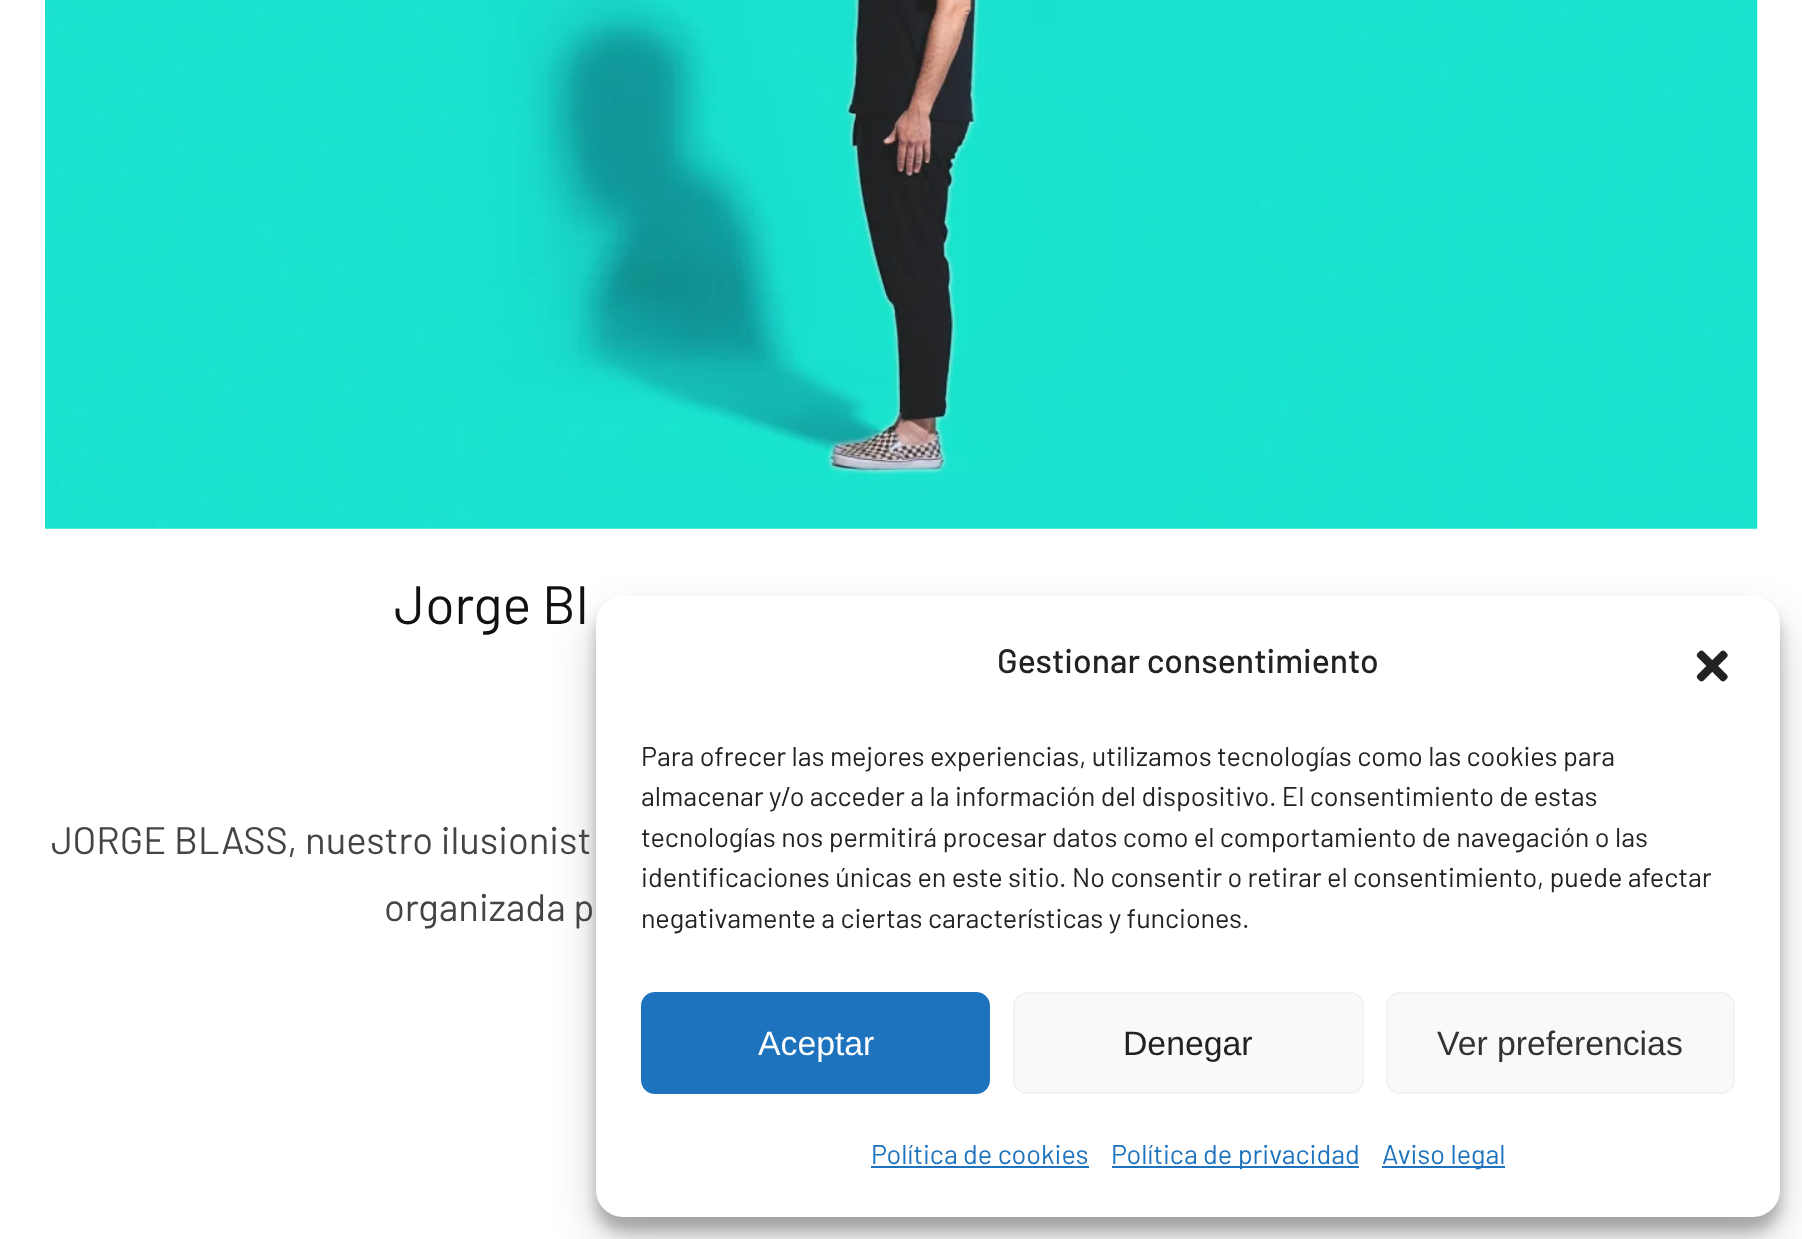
<!DOCTYPE html>
<meta charset="utf-8">
<style>body { margin: 0 } canvas { display: block }</style>
<canvas id="canvas" width="1802" height="1239"></canvas>
<img id="img1" src="img_01.png" hidden>
<img id="img2" src="img_02.png" hidden>
<script>
window.onload = function () {
	const canvas = document.getElementById("canvas");
	const ctx = canvas.getContext("2d");
	ctx.miterLimit = 4;
	ctx.fontKerning = "normal";
	function txt(s, x, y) {
		ctx.fillText(s, x, y);
	}
	function fill(x, y, w, h) {
		ctx.fillRect(x, y, w, h);
	}
	function round(x, y, w, h, r) {
		ctx.beginPath();
		ctx.roundRect(x, y, w, h, r);
		ctx.fill();
	}
	function img(id, x, y, w, h) {
		ctx.drawImage(document.getElementById(id), x, y, w, h);
	}

	ctx.fillStyle = "#FFFFFF";
	fill(0, 0, 1802, 1239);
	img("img1", 45, 0, 1713, 529);
	ctx.fillStyle = "rgba(0, 0, 0, 0.23)";
	ctx.filter = "blur(7px)";
	ctx.beginPath();
	ctx.roundRect(596, 610, 1184, 621, 27);
	ctx.fill();
	ctx.filter = "none";
	ctx.fillStyle = "rgba(0, 0, 0, 0.19)";
	ctx.filter = "blur(22.5px)";
	ctx.beginPath();
	ctx.roundRect(596, 619, 1184, 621, 27);
	ctx.fill();
	ctx.filter = "none";
	ctx.fillStyle = "#FFFFFF";
	round(596, 596, 1184, 621, 27);
	img("img2", 1696, 650, 32, 32);
	ctx.fillStyle = "#1E73BE";
	ctx.beginPath();
	ctx.roundRect(642, 993, 347, 100, 13);
	ctx.fill();
	ctx.strokeStyle = "#1E73BE";
	ctx.lineWidth = 2;
	ctx.stroke();
	ctx.fillStyle = "#F9F9F9";
	ctx.beginPath();
	ctx.roundRect(1014, 993, 349, 100, 13);
	ctx.fill();
	ctx.strokeStyle = "#F2F2F2";
	ctx.stroke();
	ctx.beginPath();
	ctx.roundRect(1387, 993, 347, 100, 13);
	ctx.fill();
	ctx.stroke();
	ctx.fillStyle = "#1E73BE";
	fill(871, 1166, 218, 2);
	fill(1112, 1166, 247, 2);
	fill(1382, 1166, 123, 2);
	ctx.font = "54px Barlow";
	ctx.fillStyle = "#111111";
	txt("Jorge Bl", 394, 624);
	ctx.font = "38.25px Barlow";
	ctx.fillStyle = "#444444";
	txt("JORGE BLASS, nuestro ilusionist", 51, 854);
	txt("organizada p", 384, 921);
	ctx.font = "500 33.75px Barlow";
	ctx.fillStyle = "#222222";
	txt("Gestionar consentimiento", 997, 673);
	ctx.font = "27px Barlow";
	txt("Para ofrecer las mejores experiencias, utilizamos tecnologías como las cookies para", 641, 766);
	txt("almacenar y/o acceder a la información del dispositivo. El consentimiento de estas", 641, 806);
	txt("tecnologías nos permitirá procesar datos como el comportamiento de navegación o las", 641, 847);
	txt("identificaciones únicas en este sitio. No consentir o retirar el consentimiento, puede afectar", 641, 887);
	txt("negativamente a ciertas características y funciones.", 641, 928);
	ctx.font = "33.75px Liberation Sans";
	ctx.fillStyle = "#FFFFFF";
	txt("Aceptar", 758, 1055);
	ctx.fillStyle = "#222222";
	txt("Denegar", 1123, 1055);
	ctx.fillStyle = "#333333";
	txt("Ver preferencias", 1437, 1055);
	ctx.font = "27px Barlow";
	ctx.fillStyle = "#1E73BE";
	txt("Política de cookies", 871, 1164);
	txt("Política de privacidad", 1111, 1164);
	txt("Aviso legal", 1382, 1164);
};
</script>
